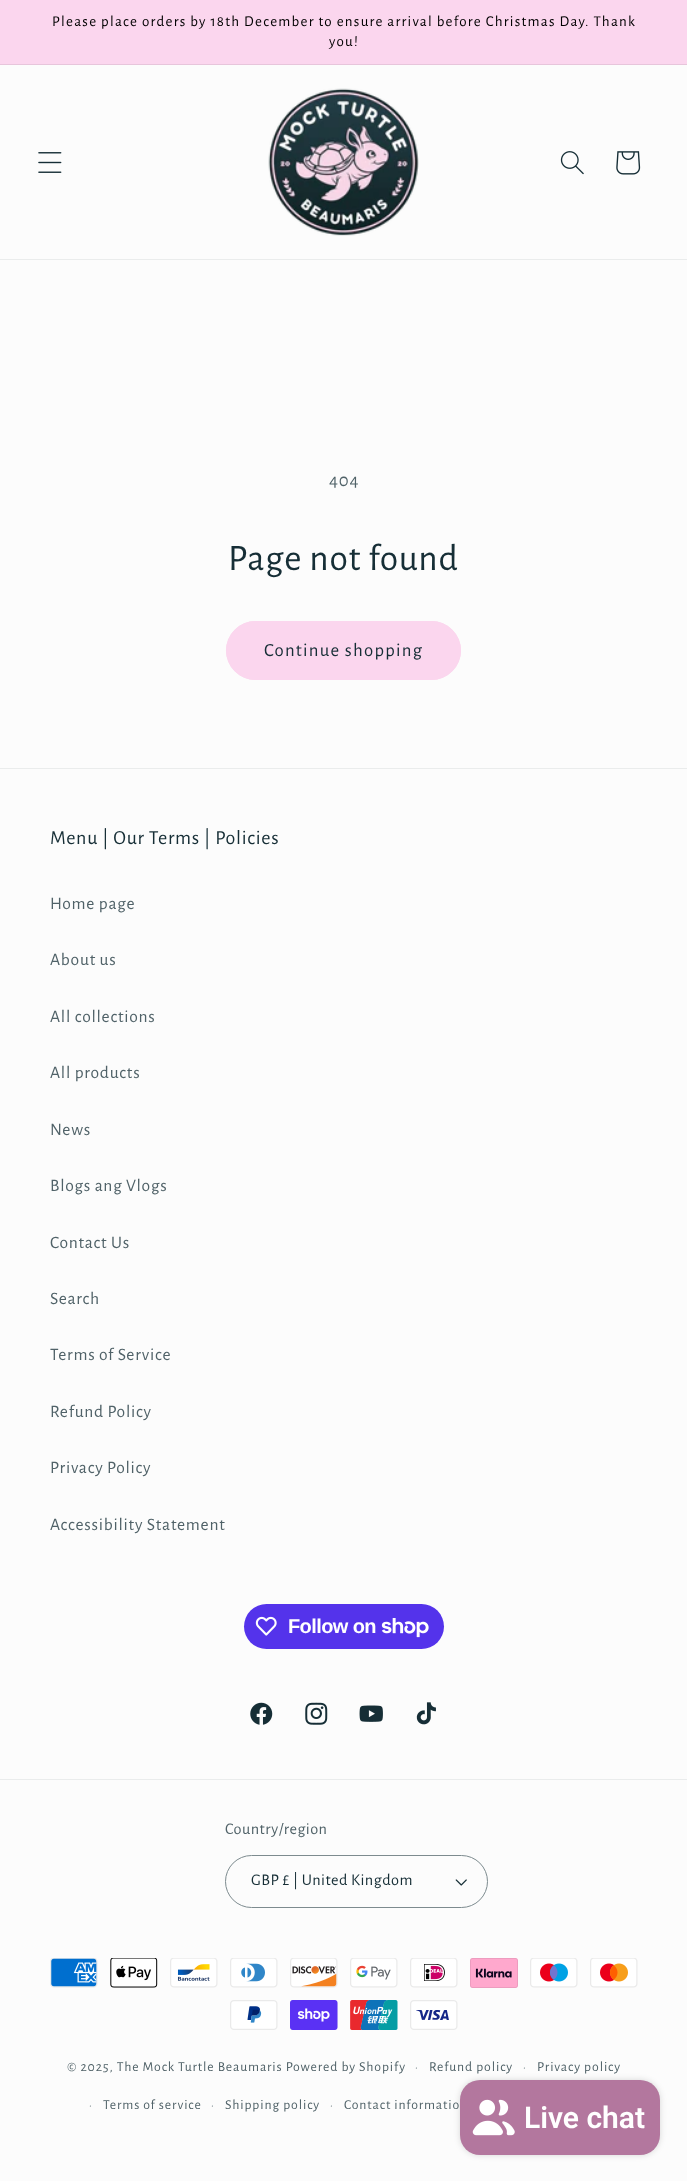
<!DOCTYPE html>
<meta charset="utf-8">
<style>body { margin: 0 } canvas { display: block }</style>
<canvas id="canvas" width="687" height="2181"></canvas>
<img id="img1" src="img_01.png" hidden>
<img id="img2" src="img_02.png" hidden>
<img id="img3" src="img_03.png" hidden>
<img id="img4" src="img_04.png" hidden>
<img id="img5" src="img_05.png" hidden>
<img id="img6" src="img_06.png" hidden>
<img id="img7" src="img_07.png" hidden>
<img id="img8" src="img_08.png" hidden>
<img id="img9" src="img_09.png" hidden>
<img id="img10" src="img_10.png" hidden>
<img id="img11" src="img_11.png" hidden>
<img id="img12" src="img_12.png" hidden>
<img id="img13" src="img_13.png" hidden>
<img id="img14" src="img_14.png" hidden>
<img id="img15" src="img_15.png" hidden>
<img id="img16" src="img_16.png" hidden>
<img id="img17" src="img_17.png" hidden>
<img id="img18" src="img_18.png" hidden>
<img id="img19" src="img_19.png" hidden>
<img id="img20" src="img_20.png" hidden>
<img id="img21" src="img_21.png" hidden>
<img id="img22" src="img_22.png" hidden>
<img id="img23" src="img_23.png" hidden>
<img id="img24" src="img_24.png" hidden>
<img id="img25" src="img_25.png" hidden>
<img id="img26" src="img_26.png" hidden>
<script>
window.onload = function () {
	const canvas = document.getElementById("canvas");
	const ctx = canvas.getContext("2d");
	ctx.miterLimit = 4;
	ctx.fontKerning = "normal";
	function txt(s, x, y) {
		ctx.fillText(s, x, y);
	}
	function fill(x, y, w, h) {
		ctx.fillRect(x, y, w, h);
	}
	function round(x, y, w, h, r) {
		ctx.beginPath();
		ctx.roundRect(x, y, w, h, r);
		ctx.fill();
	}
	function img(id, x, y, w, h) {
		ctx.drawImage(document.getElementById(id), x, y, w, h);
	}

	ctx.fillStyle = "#FCFCFC";
	fill(0, 0, 687, 2181);
	ctx.fillStyle = "#FBD6EE";
	fill(0, 0, 687, 64);
	ctx.fillStyle = "#E7C5DB";
	fill(0, 64, 687, 1);
	ctx.fillStyle = "#EAECEC";
	fill(0, 259, 687, 1);
	img("img1", 38, 152, 24, 21);
	img("img2", 268, 88, 151, 148);
	img("img3", 560, 151, 24, 24);
	img("img4", 616, 151, 25, 24);
	ctx.fillStyle = "#FBD6EE";
	round(226, 621, 235, 59, 29.5);
	ctx.beginPath();
	ctx.roundRect(226.5, 621.5, 234, 58, 29);
	ctx.strokeStyle = "#FBD6EE";
	ctx.stroke();
	ctx.fillStyle = "#EAECEC";
	fill(0, 768, 687, 1);
	ctx.fillStyle = "#5433EB";
	round(244, 1604, 200, 45, 22.5);
	img("img5", 255, 1616, 22, 20);
	img("img6", 381, 1618, 48, 20);
	img("img7", 250, 1702, 23, 23);
	img("img8", 305, 1702, 23, 23);
	img("img9", 359, 1705, 24, 17);
	img("img10", 416, 1702, 20, 23);
	ctx.fillStyle = "#EAECEC";
	fill(0, 1779, 687, 1);
	img("img11", 455, 1879, 12, 7);
	ctx.beginPath();
	ctx.roundRect(225.5, 1855.5, 262, 52, 26);
	ctx.strokeStyle = "#7D8B8F";
	ctx.stroke();
	img("img12", 50, 1958, 48, 30);
	img("img13", 110, 1958, 48, 30);
	img("img14", 170, 1958, 48, 30);
	img("img15", 230, 1958, 48, 30);
	img("img16", 290, 1958, 48, 30);
	img("img17", 350, 1958, 48, 30);
	img("img18", 410, 1958, 48, 30);
	img("img19", 470, 1958, 48, 30);
	img("img20", 530, 1958, 48, 30);
	img("img21", 590, 1958, 48, 30);
	img("img22", 230, 2000, 48, 30);
	img("img23", 290, 2000, 48, 30);
	img("img24", 350, 2000, 48, 30);
	img("img25", 410, 2000, 48, 30);
	ctx.fillStyle = "rgba(0, 0, 0, 0.15)";
	ctx.filter = "blur(3px)";
	ctx.beginPath();
	ctx.roundRect(460, 2080, 200, 75, 20);
	ctx.fill();
	ctx.filter = "none";
	ctx.fillStyle = "#B3779E";
	round(460, 2080, 200, 75, 20);
	img("img26", 472, 2099, 43, 37);
	ctx.letterSpacing = "1.25px";
	ctx.font = "15px Alegreya Sans";
	ctx.fillStyle = "#000000";
	txt("Please place orders by 18th December to ensure arrival before Christmas Day. Thank", 52, 26);
	txt("you!", 329, 46);
	ctx.letterSpacing = "0.75px";
	ctx.font = "18.75px Alegreya Sans";
	ctx.fillStyle = "#506268";
	txt("404", 329, 486);
	ctx.font = "37.5px Alegreya Sans";
	ctx.fillStyle = "#162E36";
	txt("Page not found", 228, 570);
	ctx.letterSpacing = "1.25px";
	ctx.font = "18.75px Alegreya Sans";
	txt("Continue shopping", 264, 656);
	ctx.letterSpacing = "0.75px";
	ctx.font = "20px Alegreya Sans";
	txt("Menu | Our Terms | Policies", 50, 844);
	ctx.font = "17.5px Alegreya Sans";
	ctx.fillStyle = "#506268";
	txt("Home page", 50, 909);
	txt("About us", 50, 965);
	txt("All collections", 50, 1022);
	txt("All products", 50, 1078);
	txt("News", 50, 1135);
	txt("Blogs ang Vlogs", 50, 1191);
	txt("Contact Us", 50, 1248);
	txt("Search", 50, 1304);
	txt("Terms of Service", 50, 1360);
	txt("Refund Policy", 50, 1417);
	txt("Privacy Policy", 50, 1473);
	txt("Accessibility Statement", 50, 1530);
	ctx.letterSpacing = "-0.6px";
	ctx.font = "bold 20px Liberation Sans";
	ctx.fillStyle = "#FFFFFF";
	txt("Follow on", 288, 1633);
	ctx.letterSpacing = "0.5px";
	ctx.font = "16.25px Alegreya Sans";
	ctx.fillStyle = "#506268";
	txt("Country/region", 225, 1834);
	ctx.fillStyle = "#162E36";
	txt("GBP £ | United Kingdom", 251, 1885);
	ctx.letterSpacing = "0.88px";
	ctx.font = "13.75px Alegreya Sans";
	ctx.fillStyle = "#506268";
	txt("© 2025, The Mock Turtle Beaumaris Powered by Shopify", 67, 2071);
	ctx.font = "12px Alegreya Sans";
	txt("·", 415, 2071);
	ctx.font = "13.75px Alegreya Sans";
	txt("Refund policy", 429, 2071);
	ctx.font = "12px Alegreya Sans";
	txt("·", 523, 2071);
	ctx.font = "13.75px Alegreya Sans";
	txt("Privacy policy", 537, 2071);
	ctx.font = "12px Alegreya Sans";
	txt("·", 89, 2109);
	ctx.font = "13.75px Alegreya Sans";
	txt("Terms of service", 103, 2109);
	ctx.font = "12px Alegreya Sans";
	txt("·", 211, 2109);
	ctx.font = "13.75px Alegreya Sans";
	txt("Shipping policy", 225, 2109);
	ctx.font = "12px Alegreya Sans";
	txt("·", 330, 2109);
	ctx.font = "13.75px Alegreya Sans";
	txt("Contact informatio", 344, 2109);
	ctx.letterSpacing = "0px";
	ctx.font = "600 30px Roboto";
	ctx.fillStyle = "#FFFFFF";
	txt("Live chat", 524, 2128);
};
</script>
